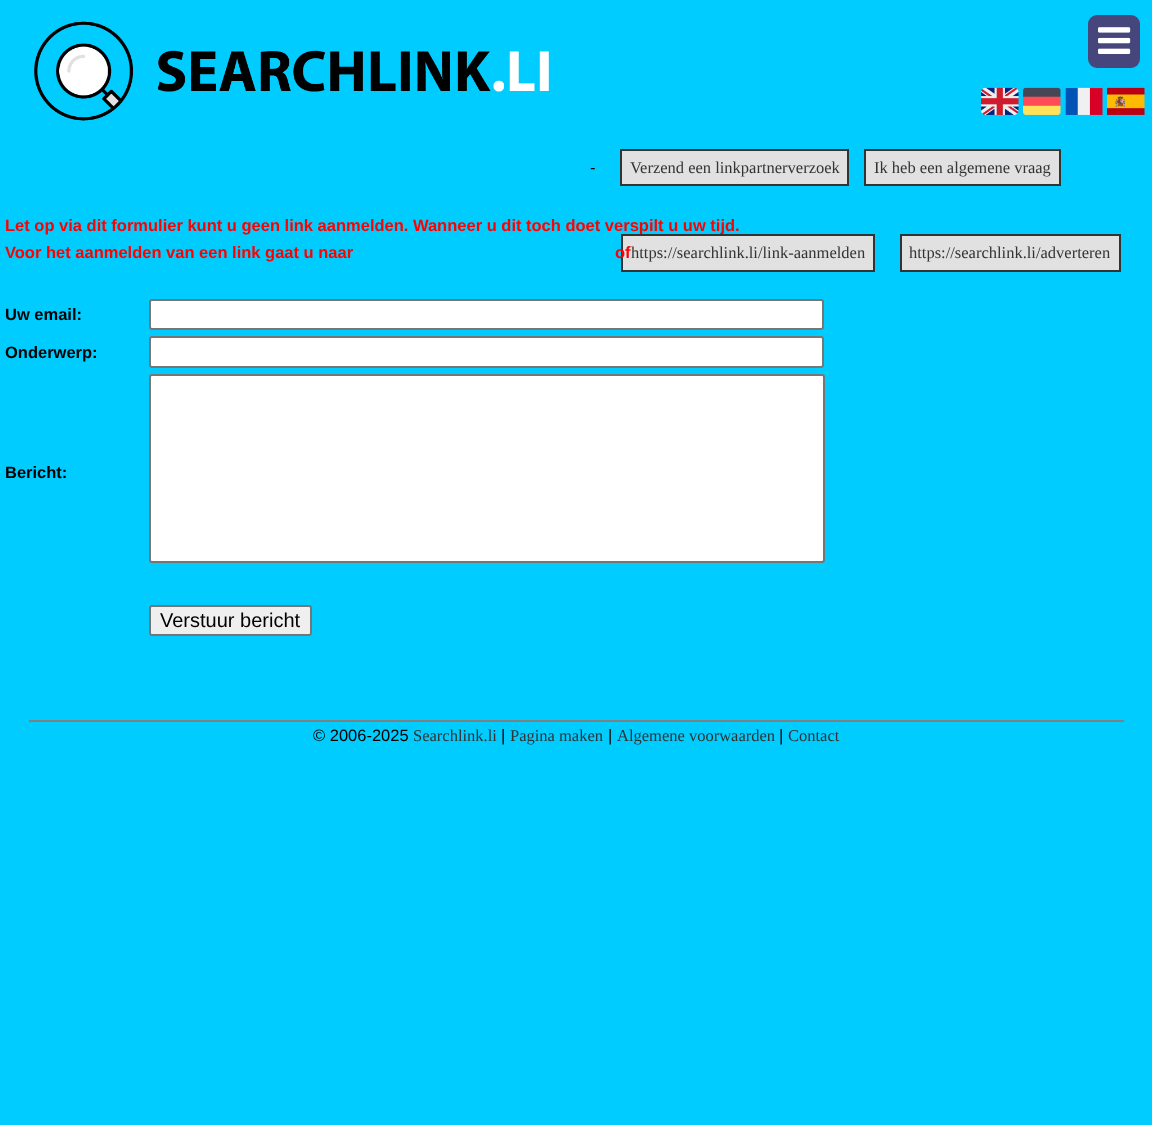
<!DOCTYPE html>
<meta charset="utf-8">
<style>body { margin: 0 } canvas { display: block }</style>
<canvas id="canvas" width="1152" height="1125"></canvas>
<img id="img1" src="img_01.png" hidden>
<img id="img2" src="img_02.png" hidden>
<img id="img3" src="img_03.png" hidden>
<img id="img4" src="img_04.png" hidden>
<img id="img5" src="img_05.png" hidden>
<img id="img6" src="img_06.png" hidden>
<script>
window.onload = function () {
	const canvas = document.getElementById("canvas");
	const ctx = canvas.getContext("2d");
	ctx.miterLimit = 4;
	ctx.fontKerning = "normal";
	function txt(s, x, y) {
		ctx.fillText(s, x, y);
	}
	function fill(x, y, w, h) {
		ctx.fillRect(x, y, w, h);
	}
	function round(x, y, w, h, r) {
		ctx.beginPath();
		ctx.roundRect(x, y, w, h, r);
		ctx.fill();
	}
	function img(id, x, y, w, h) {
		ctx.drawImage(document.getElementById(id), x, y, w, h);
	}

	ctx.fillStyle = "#00CCFF";
	fill(0, 0, 1152, 1125);
	img("img1", 34, 21, 515, 100);
	ctx.fillStyle = "#46467C";
	round(1088, 15, 52, 53, 9);
	img("img2", 1098, 27, 33, 27);
	img("img3", 981, 87, 38, 28);
	img("img4", 1023, 87, 38, 28);
	img("img5", 1065, 87, 38, 28);
	img("img6", 1107, 87, 38, 28);
	ctx.fillStyle = "#E1E1E1";
	ctx.beginPath();
	ctx.rect(621, 150, 227, 35);
	ctx.fill();
	ctx.strokeStyle = "#333333";
	ctx.lineWidth = 2;
	ctx.stroke();
	ctx.beginPath();
	ctx.rect(865, 150, 195, 35);
	ctx.fill();
	ctx.stroke();
	ctx.beginPath();
	ctx.rect(901, 235, 219, 36);
	ctx.fill();
	ctx.stroke();
	ctx.fillStyle = "#FFFFFF";
	ctx.beginPath();
	ctx.roundRect(150, 300, 673, 29, 2);
	ctx.fill();
	ctx.strokeStyle = "#767676";
	ctx.stroke();
	ctx.beginPath();
	ctx.roundRect(150, 337, 673, 30, 2);
	ctx.fill();
	ctx.stroke();
	ctx.beginPath();
	ctx.roundRect(150, 375, 674, 187, 2);
	ctx.fill();
	ctx.stroke();
	ctx.fillStyle = "#EFEFEF";
	ctx.beginPath();
	ctx.roundRect(150, 606, 161, 29, 2);
	ctx.fill();
	ctx.stroke();
	ctx.fillStyle = "#808080";
	fill(29, 720, 1095, 2);
	ctx.font = "16.5px Liberation Sans";
	ctx.fillStyle = "#000000";
	txt("-", 590, 173);
	ctx.font = "16.5px Liberation Serif";
	ctx.fillStyle = "#333333";
	txt("Verzend een linkpartnerverzoek", 630, 173);
	txt("Ik heb een algemene vraag", 874, 173);
	ctx.font = "bold 16.5px Liberation Sans";
	ctx.fillStyle = "#FF0000";
	txt("Let op via dit formulier kunt u geen link aanmelden. Wanneer u dit toch doet verspilt u uw tijd.", 5, 231);
	txt("Voor het aanmelden van een link gaat u naar", 5, 258);
	ctx.fillStyle = "#E1E1E1";
	ctx.beginPath();
	ctx.rect(622, 235, 252, 36);
	ctx.fill();
	ctx.strokeStyle = "#333333";
	ctx.stroke();
	ctx.font = "16.5px Liberation Serif";
	ctx.fillStyle = "#333333";
	txt("https://searchlink.li/link-aanmelden", 631, 258);
	ctx.font = "bold 16.5px Liberation Sans";
	ctx.fillStyle = "#FF0000";
	txt("of", 615, 258);
	ctx.font = "16.5px Liberation Serif";
	ctx.fillStyle = "#333333";
	txt("https://searchlink.li/adverteren", 909, 258);
	ctx.font = "bold 16.5px Liberation Sans";
	ctx.fillStyle = "#000000";
	txt("Uw email:", 5, 320);
	txt("Onderwerp:", 5, 358);
	txt("Bericht:", 5, 478);
	ctx.font = "20px Liberation Sans";
	txt("Verstuur bericht", 160, 627);
	ctx.font = "16.5px Liberation Sans";
	txt("© 2006-2025", 313, 741);
	ctx.font = "16.5px Liberation Serif";
	ctx.fillStyle = "#333333";
	txt("Searchlink.li", 413, 741);
	ctx.font = "16.5px Liberation Sans";
	ctx.fillStyle = "#000000";
	txt("|", 501, 741);
	ctx.font = "16.5px Liberation Serif";
	ctx.fillStyle = "#333333";
	txt("Pagina maken", 510, 741);
	ctx.font = "16.5px Liberation Sans";
	ctx.fillStyle = "#000000";
	txt("|", 608, 741);
	ctx.font = "16.5px Liberation Serif";
	ctx.fillStyle = "#333333";
	txt("Algemene voorwaarden", 617, 741);
	ctx.font = "16.5px Liberation Sans";
	ctx.fillStyle = "#000000";
	txt("|", 779, 741);
	ctx.font = "16.5px Liberation Serif";
	ctx.fillStyle = "#333333";
	txt("Contact", 788, 741);
};
</script>
